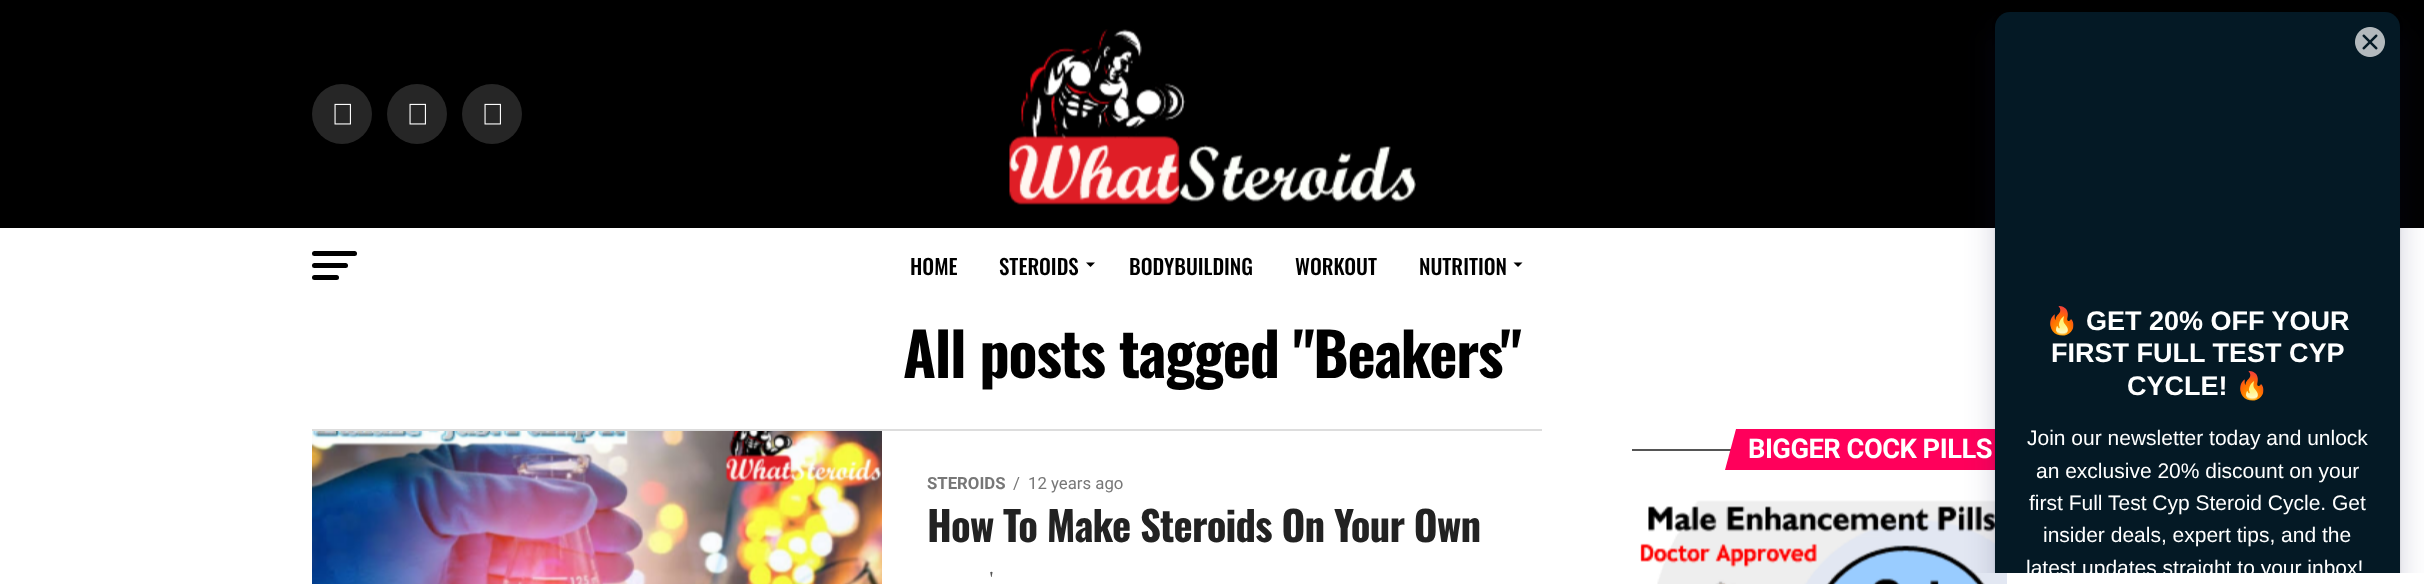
<!DOCTYPE html>
<meta charset="utf-8">
<style>body { margin: 0 } canvas { display: block }</style>
<canvas id="canvas" width="2424" height="584"></canvas>
<img id="img1" src="img_01.png" hidden>
<img id="img2" src="img_02.png" hidden>
<img id="img3" src="img_03.png" hidden>
<img id="img4" src="img_04.png" hidden>
<img id="img5" src="img_05.png" hidden>
<script>
window.onload = function () {
	const canvas = document.getElementById("canvas");
	const ctx = canvas.getContext("2d");
	ctx.miterLimit = 4;
	ctx.fontKerning = "normal";
	function txt(s, x, y) {
		ctx.fillText(s, x, y);
	}
	function fill(x, y, w, h) {
		ctx.fillRect(x, y, w, h);
	}
	function round(x, y, w, h, r) {
		ctx.beginPath();
		ctx.roundRect(x, y, w, h, r);
		ctx.fill();
	}
	function img(id, x, y, w, h) {
		ctx.drawImage(document.getElementById(id), x, y, w, h);
	}

	ctx.fillStyle = "#FFFFFF";
	fill(0, 0, 2424, 584);
	ctx.fillStyle = "#000000";
	fill(0, 0, 2424, 228);
	ctx.fillStyle = "#262626";
	ctx.beginPath();
	ctx.arc(342, 114, 30, 0, Math.PI * 2);
	ctx.fill();
	img("img1", 334, 103, 17, 22);
	ctx.beginPath();
	ctx.arc(417, 114, 30, 0, Math.PI * 2);
	ctx.fill();
	img("img1", 409, 103, 17, 22);
	ctx.beginPath();
	ctx.arc(492, 114, 30, 0, Math.PI * 2);
	ctx.fill();
	img("img1", 484, 103, 17, 22);
	img("img2", 1009, 29, 407, 176);
	ctx.fillStyle = "#000000";
	round(312, 251, 45, 5, 2.5);
	round(312, 263, 36, 5, 2.5);
	round(312, 275, 27, 5, 2.5);
	ctx.beginPath();
	ctx.moveTo(1086, 262.5);
	ctx.lineTo(1095, 262.5);
	ctx.lineTo(1090.5, 267);
	ctx.closePath();
	ctx.fill();
	ctx.beginPath();
	ctx.moveTo(1513.5, 262.5);
	ctx.lineTo(1522.5, 262.5);
	ctx.lineTo(1518, 267);
	ctx.closePath();
	ctx.fill();
	ctx.fillStyle = "#555555";
	fill(1632, 449, 99, 2);
	ctx.fillStyle = "#FF005B";
	ctx.beginPath();
	ctx.moveTo(1736, 429);
	ctx.lineTo(2019, 429);
	ctx.lineTo(2008, 470);
	ctx.lineTo(1725, 470);
	ctx.closePath();
	ctx.fill();
	img("img3", 1640, 500, 367, 84);
	ctx.fillStyle = "#DDDDDD";
	fill(312, 429, 1230, 2);
	img("img4", 312, 431, 570, 153);
	ctx.save();
	ctx.beginPath();
	ctx.rect(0, 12, 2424, 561);
	ctx.clip();
	ctx.fillStyle = "rgba(31, 31, 87, 0.2)";
	ctx.filter = "blur(15px)";
	ctx.beginPath();
	ctx.roundRect(1995, 27, 405, 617, 15);
	ctx.fill();
	ctx.filter = "none";
	ctx.fillStyle = "rgba(0, 0, 0, 0.1)";
	ctx.filter = "blur(1.5px)";
	ctx.beginPath();
	ctx.roundRect(1995, 11, 405, 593, 15);
	ctx.fill();
	ctx.filter = "none";
	ctx.restore();
	ctx.fillStyle = "#041925";
	ctx.beginPath();
	ctx.roundRect(1995, 12, 405, 561, [15, 15, 0, 0]);
	ctx.fill();
	img("img5", 2355, 27, 30, 30);
	ctx.font = "500 21px Oswald";
	ctx.fillStyle = "#000000";
	txt("HOME", 910, 275);
	txt("STEROIDS", 999, 275);
	txt("BODYBUILDING", 1129, 275);
	txt("WORKOUT", 1295, 275);
	txt("NUTRITION", 1419, 275);
	ctx.letterSpacing = "-1.2px";
	ctx.font = "bold 60px Oswald";
	txt("All posts tagged \"Beakers\"", 903, 378);
	ctx.letterSpacing = "-0.5px";
	ctx.font = "bold 27.25px Roboto";
	ctx.fillStyle = "#FFFFFF";
	txt("BIGGER COCK PILLS", 1748, 458);
	ctx.letterSpacing = "0px";
	ctx.font = "bold 16.75px Roboto";
	ctx.fillStyle = "#777777";
	txt("STEROIDS", 927, 489);
	ctx.font = "16.75px Roboto";
	txt("/", 1013, 489);
	txt("12 years ago", 1028, 489);
	ctx.letterSpacing = "-0.8px";
	ctx.font = "bold 40.75px Oswald";
	ctx.fillStyle = "#222222";
	txt("How To Make Steroids On Your Own", 927, 542);
	ctx.letterSpacing = "0px";
	ctx.font = "26px PT Serif";
	ctx.fillStyle = "#555555";
	txt("'", 988, 590);
	ctx.save();
	ctx.beginPath();
	ctx.rect(2019, 306, 357, 267);
	ctx.clip();
	ctx.font = "bold 27px Noto Color Emoji";
	ctx.fillStyle = "#FFFFFF";
	txt("🔥", 2045, 330);
	ctx.restore();
	ctx.font = "bold 27px Liberation Sans";
	ctx.fillStyle = "#FFFFFF";
	txt("GET 20% OFF YOUR", 2086, 330);
	txt("FIRST FULL TEST CYP", 2051, 362);
	txt("CYCLE!", 2127, 395);
	ctx.font = "bold 27px Noto Color Emoji";
	txt("🔥", 2235, 395);
	ctx.font = "21px Liberation Sans";
	txt("Join our newsletter today and unlock", 2027, 445);
	txt("an exclusive 20% discount on your", 2036, 478);
	txt("first Full Test Cyp Steroid Cycle. Get", 2029, 510);
	txt("insider deals, expert tips, and the", 2043, 542);
	ctx.save();
	ctx.beginPath();
	ctx.rect(2019, 306, 357, 267);
	ctx.clip();
	txt("latest updates straight to your inbox!", 2026, 575);
	ctx.restore();
};
</script>
